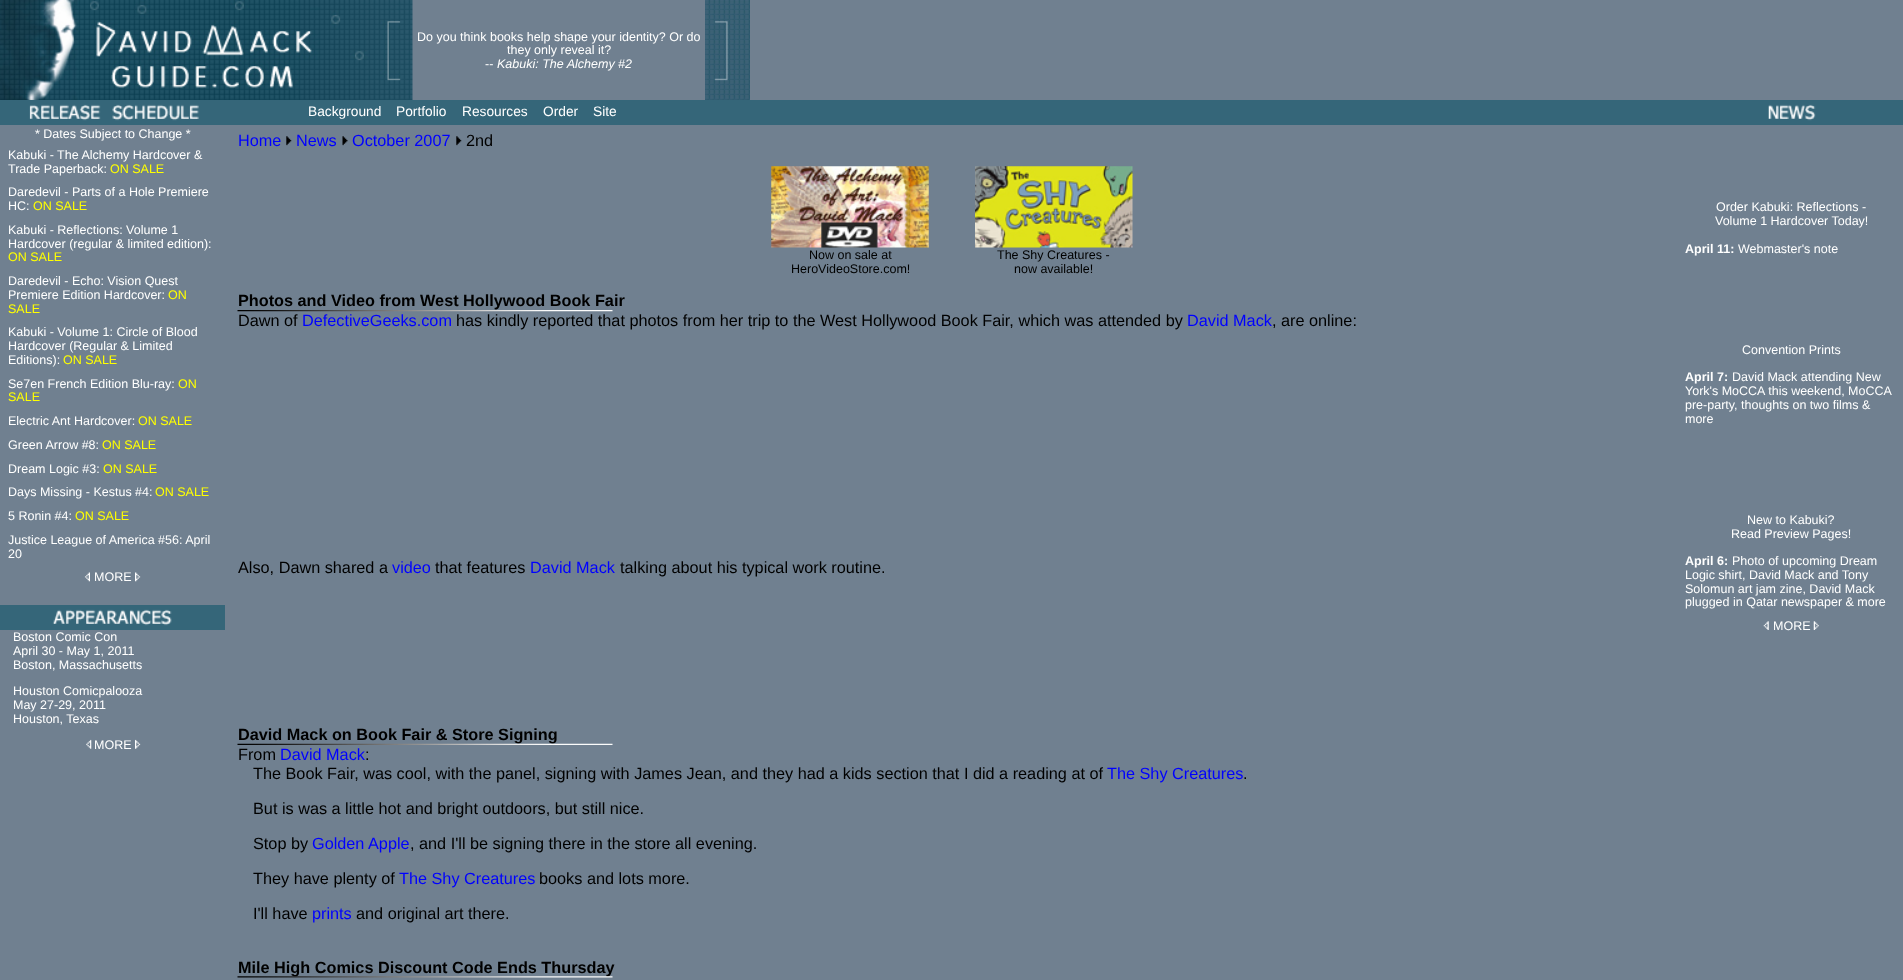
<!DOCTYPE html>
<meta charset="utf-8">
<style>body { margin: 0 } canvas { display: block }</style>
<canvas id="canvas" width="1903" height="980"></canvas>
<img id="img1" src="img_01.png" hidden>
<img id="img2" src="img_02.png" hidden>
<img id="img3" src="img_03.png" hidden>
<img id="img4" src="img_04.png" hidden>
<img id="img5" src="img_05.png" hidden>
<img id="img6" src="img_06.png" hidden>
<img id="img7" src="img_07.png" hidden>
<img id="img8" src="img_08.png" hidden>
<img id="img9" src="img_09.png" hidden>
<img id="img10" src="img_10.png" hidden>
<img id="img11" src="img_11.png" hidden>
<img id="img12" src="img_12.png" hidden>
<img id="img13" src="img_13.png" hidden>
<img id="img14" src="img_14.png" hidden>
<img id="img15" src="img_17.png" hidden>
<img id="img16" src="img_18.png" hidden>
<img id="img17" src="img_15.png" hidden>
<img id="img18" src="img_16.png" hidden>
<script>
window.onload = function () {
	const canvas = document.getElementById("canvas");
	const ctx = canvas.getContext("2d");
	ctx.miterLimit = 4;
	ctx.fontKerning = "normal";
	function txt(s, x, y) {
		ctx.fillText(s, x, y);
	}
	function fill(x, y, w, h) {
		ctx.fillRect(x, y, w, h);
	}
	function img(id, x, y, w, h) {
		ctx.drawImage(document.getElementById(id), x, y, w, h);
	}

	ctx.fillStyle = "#708090";
	fill(0, 0, 1903, 980);
	img("img1", 0, 0, 413, 100);
	img("img2", 705, 0, 45, 100);
	ctx.fillStyle = "#356679";
	fill(0, 100, 1903, 25);
	img("img3", 29, 104, 170, 17);
	img("img4", 1768, 104, 48, 17);
	img("img5", 84, 572, 6, 10);
	img("img6", 135, 572, 6, 10);
	img("img7", 0, 605, 225, 25);
	img("img8", 86, 739, 6, 10);
	img("img9", 135, 739, 6, 10);
	img("img10", 286, 136, 6, 10);
	img("img11", 342, 136, 6, 10);
	img("img10", 456, 136, 6, 10);
	img("img12", 771, 166, 158, 82);
	img("img13", 975, 166, 158, 82);
	img("img14", 237, 310, 376, 2);
	img("img15", 1763, 621, 6, 9);
	img("img16", 1813, 621, 6, 9);
	ctx.font = "12.5px Liberation Sans";
	ctx.fillStyle = "#FFFFFF";
	txt("Do you think books help shape your identity? Or do", 417, 41);
	txt("they only reveal it?", 507, 54);
	txt("--", 485, 68);
	ctx.font = "italic 12.5px Liberation Sans";
	txt("Kabuki: The Alchemy #2", 497, 68);
	ctx.font = "12.5px Liberation Sans";
	txt("* Dates Subject to Change *", 35, 138);
	txt("Kabuki - The Alchemy Hardcover &", 8, 159);
	txt("Trade Paperback:", 8, 173);
	ctx.fillStyle = "#FFFF00";
	txt("ON SALE", 110, 173);
	ctx.fillStyle = "#FFFFFF";
	txt("Daredevil - Parts of a Hole Premiere", 8, 196);
	txt("HC:", 8, 210);
	ctx.fillStyle = "#FFFF00";
	txt("ON SALE", 33, 210);
	ctx.fillStyle = "#FFFFFF";
	txt("Kabuki - Reflections: Volume 1", 8, 234);
	txt("Hardcover (regular & limited edition):", 8, 248);
	ctx.fillStyle = "#FFFF00";
	txt("ON SALE", 8, 261);
	ctx.fillStyle = "#FFFFFF";
	txt("Daredevil - Echo: Vision Quest", 8, 285);
	txt("Premiere Edition Hardcover:", 8, 299);
	ctx.fillStyle = "#FFFF00";
	txt("ON", 168, 299);
	txt("SALE", 8, 313);
	ctx.fillStyle = "#FFFFFF";
	txt("Kabuki - Volume 1: Circle of Blood", 8, 336);
	txt("Hardcover (Regular & Limited", 8, 350);
	txt("Editions):", 8, 364);
	ctx.fillStyle = "#FFFF00";
	txt("ON SALE", 63, 364);
	ctx.fillStyle = "#FFFFFF";
	txt("Se7en French Edition Blu-ray:", 8, 388);
	ctx.fillStyle = "#FFFF00";
	txt("ON", 178, 388);
	txt("SALE", 8, 401);
	ctx.fillStyle = "#FFFFFF";
	txt("Electric Ant Hardcover:", 8, 425);
	ctx.fillStyle = "#FFFF00";
	txt("ON SALE", 138, 425);
	ctx.fillStyle = "#FFFFFF";
	txt("Green Arrow #8:", 8, 449);
	ctx.fillStyle = "#FFFF00";
	txt("ON SALE", 102, 449);
	ctx.fillStyle = "#FFFFFF";
	txt("Dream Logic #3:", 8, 473);
	ctx.fillStyle = "#FFFF00";
	txt("ON SALE", 103, 473);
	ctx.fillStyle = "#FFFFFF";
	txt("Days Missing - Kestus #4:", 8, 496);
	ctx.fillStyle = "#FFFF00";
	txt("ON SALE", 155, 496);
	ctx.fillStyle = "#FFFFFF";
	txt("5 Ronin #4:", 8, 520);
	ctx.fillStyle = "#FFFF00";
	txt("ON SALE", 75, 520);
	ctx.fillStyle = "#FFFFFF";
	txt("Justice League of America #56: April", 8, 544);
	txt("20", 8, 558);
	txt("MORE", 94, 581);
	txt("Boston Comic Con", 13, 641);
	txt("April 30 - May 1, 2011", 13, 655);
	txt("Boston, Massachusetts", 13, 669);
	txt("Houston Comicpalooza", 13, 695);
	txt("May 27-29, 2011", 13, 709);
	txt("Houston, Texas", 13, 723);
	txt("MORE", 94, 749);
	ctx.font = "16.25px Liberation Sans";
	ctx.fillStyle = "#0000FF";
	txt("Home", 238, 146);
	txt("News", 296, 146);
	txt("October 2007", 352, 146);
	ctx.fillStyle = "#000000";
	txt("2nd", 466, 146);
	ctx.font = "12.5px Liberation Sans";
	txt("Now on sale at", 809, 259);
	txt("HeroVideoStore.com!", 791, 273);
	txt("The Shy Creatures -", 997, 259);
	txt("now available!", 1014, 273);
	ctx.font = "bold 16.25px Liberation Sans";
	txt("Photos and Video from West Hollywood Book Fair", 238, 306);
	ctx.font = "16.25px Liberation Sans";
	txt("Dawn of", 238, 326);
	ctx.fillStyle = "#0000FF";
	txt("DefectiveGeeks.com", 302, 326);
	ctx.fillStyle = "#000000";
	txt("has kindly reported that photos from her trip to the West Hollywood Book Fair, which was attended by", 456, 326);
	ctx.fillStyle = "#0000FF";
	txt("David Mack", 1187, 326);
	ctx.fillStyle = "#000000";
	txt(", are online:", 1272, 326);
	txt("Also, Dawn shared a", 238, 573);
	ctx.fillStyle = "#0000FF";
	txt("video", 392, 573);
	ctx.fillStyle = "#000000";
	txt("that features", 435, 573);
	ctx.fillStyle = "#0000FF";
	txt("David Mack", 530, 573);
	ctx.fillStyle = "#000000";
	txt("talking about his typical work routine.", 620, 573);
	ctx.font = "bold 16.25px Liberation Sans";
	txt("David Mack on Book Fair & Store Signing", 238, 740);
	img("img17", 237, 743, 376, 2);
	ctx.font = "16.25px Liberation Sans";
	txt("From", 238, 760);
	ctx.fillStyle = "#0000FF";
	txt("David Mack", 280, 760);
	ctx.fillStyle = "#000000";
	txt(":", 365, 760);
	txt("The Book Fair, was cool, with the panel, signing with James Jean, and they had a kids section that I did a reading at of", 253, 779);
	ctx.fillStyle = "#0000FF";
	txt("The Shy Creatures", 1107, 779);
	ctx.fillStyle = "#000000";
	txt(".", 1243, 779);
	txt("But is was a little hot and bright outdoors, but still nice.", 253, 814);
	txt("Stop by", 253, 849);
	ctx.fillStyle = "#0000FF";
	txt("Golden Apple", 312, 849);
	ctx.fillStyle = "#000000";
	txt(", and I'll be signing there in the store all evening.", 410, 849);
	txt("They have plenty of", 253, 884);
	ctx.fillStyle = "#0000FF";
	txt("The Shy Creatures", 399, 884);
	ctx.fillStyle = "#000000";
	txt("books and lots more.", 539, 884);
	txt("I'll have", 253, 919);
	ctx.fillStyle = "#0000FF";
	txt("prints", 312, 919);
	ctx.fillStyle = "#000000";
	txt("and original art there.", 356, 919);
	ctx.font = "bold 16.25px Liberation Sans";
	txt("Mile High Comics Discount Code Ends Thursday", 238, 973);
	img("img18", 237, 976, 376, 2);
	ctx.font = "12.5px Liberation Sans";
	ctx.fillStyle = "#FFFFFF";
	txt("Order Kabuki: Reflections -", 1716, 211);
	txt("Volume 1 Hardcover Today!", 1715, 225);
	ctx.font = "bold 12.5px Liberation Sans";
	txt("April 11:", 1685, 253);
	ctx.font = "12.5px Liberation Sans";
	txt("Webmaster's note", 1738, 253);
	txt("Convention Prints", 1742, 354);
	ctx.font = "bold 12.5px Liberation Sans";
	txt("April 7:", 1685, 381);
	ctx.font = "12.5px Liberation Sans";
	txt("David Mack attending New", 1732, 381);
	txt("York's MoCCA this weekend, MoCCA", 1685, 395);
	txt("pre-party, thoughts on two films &", 1685, 409);
	txt("more", 1685, 423);
	txt("New to Kabuki?", 1747, 524);
	txt("Read Preview Pages!", 1731, 538);
	ctx.font = "bold 12.5px Liberation Sans";
	txt("April 6:", 1685, 565);
	ctx.font = "12.5px Liberation Sans";
	txt("Photo of upcoming Dream", 1732, 565);
	txt("Logic shirt, David Mack and Tony", 1685, 579);
	txt("Solomun art jam zine, David Mack", 1685, 593);
	txt("plugged in Qatar newspaper & more", 1685, 606);
	txt("MORE", 1773, 630);
	ctx.font = "13.75px Liberation Sans";
	txt("Background", 308, 116);
	txt("Portfolio", 396, 116);
	txt("Resources", 462, 116);
	txt("Order", 543, 116);
	txt("Site", 593, 116);
};
</script>
